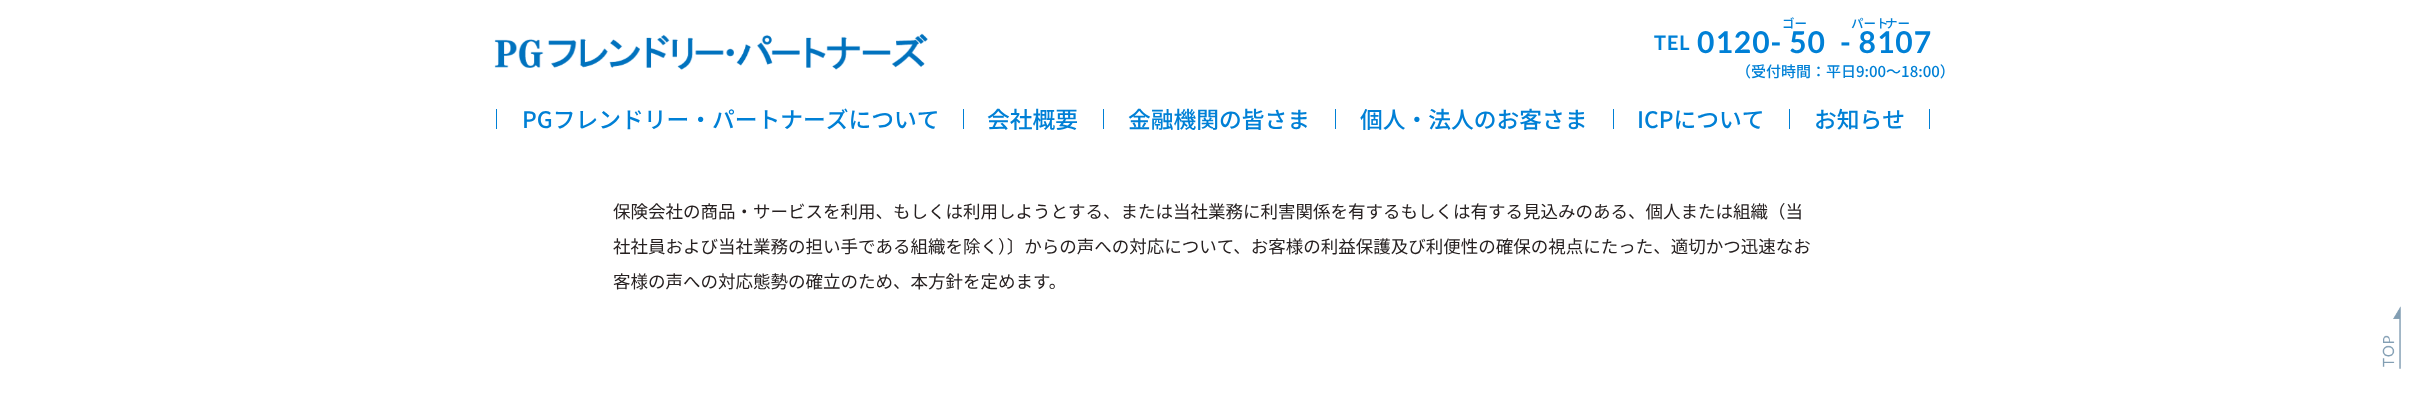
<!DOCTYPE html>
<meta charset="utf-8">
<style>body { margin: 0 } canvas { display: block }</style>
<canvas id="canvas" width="2426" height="393"></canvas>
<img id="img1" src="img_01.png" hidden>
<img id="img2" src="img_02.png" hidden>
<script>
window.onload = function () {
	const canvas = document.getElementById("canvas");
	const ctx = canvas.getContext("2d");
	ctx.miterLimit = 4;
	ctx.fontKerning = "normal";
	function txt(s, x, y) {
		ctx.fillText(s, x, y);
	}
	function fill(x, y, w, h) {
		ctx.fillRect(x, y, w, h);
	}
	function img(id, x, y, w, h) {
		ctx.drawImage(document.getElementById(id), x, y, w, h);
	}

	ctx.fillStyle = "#FFFFFF";
	fill(0, 0, 2426, 393);
	img("img1", 494, 33, 434, 37);
	ctx.fillStyle = "#0080D6";
	fill(496, 109, 1, 20);
	fill(963, 109, 1, 20);
	fill(1103, 109, 1, 20);
	fill(1335, 109, 1, 20);
	fill(1613, 109, 1, 20);
	fill(1789, 109, 1, 20);
	fill(1929, 109, 1, 20);
	img("img2", 2382, 306, 19, 63);
	ctx.letterSpacing = "1px";
	ctx.font = "bold 20px Lato";
	txt("TEL", 1654, 50);
	ctx.letterSpacing = "0px";
	ctx.font = "500 12.5px Noto Sans JP";
	txt("ゴー", 1782, 28);
	txt("パート", 1851, 28);
	txt("ナー", 1885, 28);
	ctx.letterSpacing = "1px";
	ctx.font = "bold 30px Lato";
	txt("0120- 50", 1697, 53);
	txt("- 8107", 1840, 53);
	ctx.letterSpacing = "0px";
	ctx.font = "500 15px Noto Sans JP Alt";
	txt("（受付時間：平日9:00〜18:00）", 1736, 77);
	ctx.font = "500 22.75px Noto Sans JP";
	txt("PGフレンドリー・パートナーズについて", 522, 128);
	txt("会社概要", 987, 128);
	txt("金融機関の皆さま", 1128, 128);
	txt("個人・法人のお客さま", 1360, 128);
	txt("ICPについて", 1637, 128);
	txt("お知らせ", 1814, 128);
	ctx.font = "17.5px Noto Sans JP";
	ctx.fillStyle = "#262020";
	txt("保険会社の商品・サービスを利用、もしくは利用しようとする、または当社業務に利害関係を有するもしくは有する見込みのある、個人または組織（当", 613, 218);
	txt("社社員および当社業務の担い手である組織を除く）〕からの声への対応について、お客様の利益保護及び利便性の確保の視点にたった、適切かつ迅速なお", 613, 253);
	txt("客様の声への対応態勢の確立のため、本方針を定めます。", 613, 288);
};
</script>
